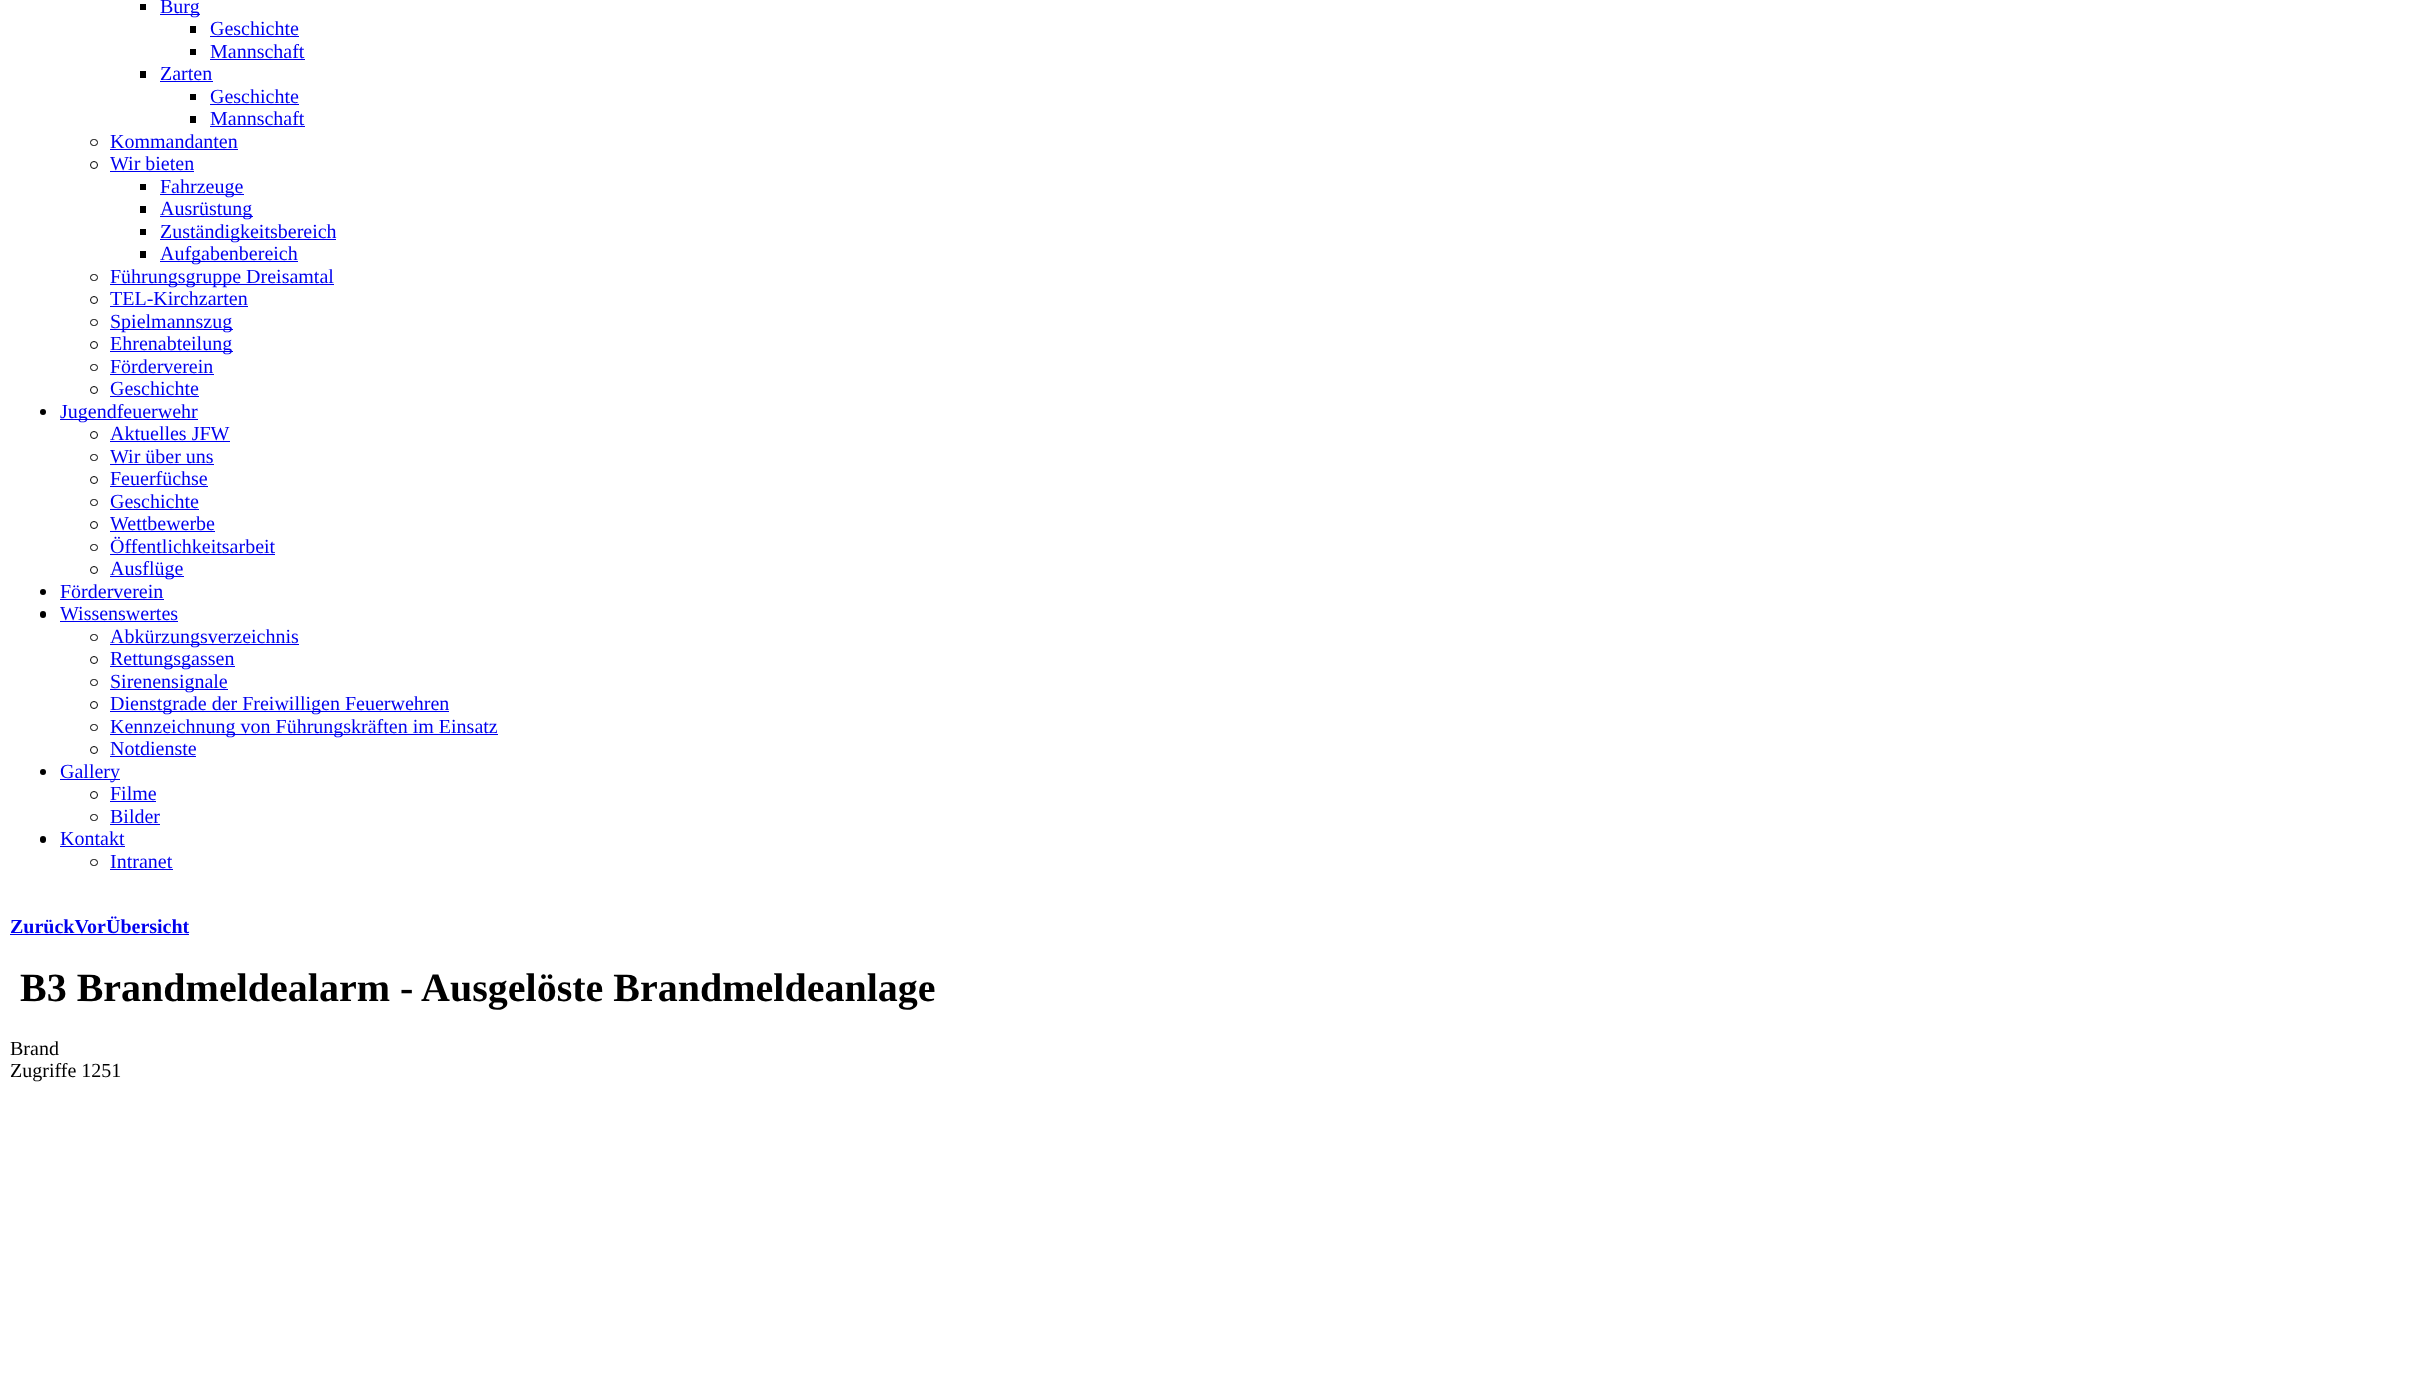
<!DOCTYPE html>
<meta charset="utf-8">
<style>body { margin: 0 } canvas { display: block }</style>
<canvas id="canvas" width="2418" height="1397"></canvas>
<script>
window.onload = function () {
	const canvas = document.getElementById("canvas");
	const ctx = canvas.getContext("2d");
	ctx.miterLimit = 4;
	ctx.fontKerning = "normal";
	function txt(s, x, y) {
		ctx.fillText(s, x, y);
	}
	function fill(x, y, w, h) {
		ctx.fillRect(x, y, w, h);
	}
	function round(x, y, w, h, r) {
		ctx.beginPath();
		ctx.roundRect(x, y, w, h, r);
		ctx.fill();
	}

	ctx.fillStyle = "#FFFFFF";
	fill(0, 0, 2418, 1397);
	ctx.fillStyle = "#000000";
	fill(140, 4, 6, 6);
	ctx.fillStyle = "#0000EE";
	fill(160, 14, 40, 1);
	ctx.fillStyle = "#000000";
	fill(190, 26, 6, 7);
	ctx.fillStyle = "#0000EE";
	fill(210, 36, 89, 1);
	ctx.fillStyle = "#000000";
	fill(190, 49, 6, 6);
	ctx.fillStyle = "#0000EE";
	fill(210, 59, 95, 1);
	ctx.fillStyle = "#000000";
	fill(140, 71, 6, 7);
	ctx.fillStyle = "#0000EE";
	fill(160, 81, 53, 1);
	ctx.fillStyle = "#000000";
	fill(190, 94, 6, 6);
	ctx.fillStyle = "#0000EE";
	fill(210, 104, 89, 1);
	ctx.fillStyle = "#000000";
	fill(190, 116, 6, 7);
	ctx.fillStyle = "#0000EE";
	fill(210, 126, 95, 1);
	ctx.beginPath();
	ctx.roundRect(90.5, 139.5, 7, 6, 3);
	ctx.strokeStyle = "#000000";
	ctx.stroke();
	fill(110, 149, 128, 1);
	ctx.beginPath();
	ctx.arc(94, 165, 3.5, 0, Math.PI * 2);
	ctx.stroke();
	fill(110, 171, 84, 1);
	ctx.fillStyle = "#000000";
	fill(140, 184, 6, 6);
	ctx.fillStyle = "#0000EE";
	fill(160, 194, 84, 1);
	ctx.fillStyle = "#000000";
	fill(140, 206, 6, 7);
	ctx.fillStyle = "#0000EE";
	fill(160, 216, 93, 1);
	ctx.fillStyle = "#000000";
	fill(140, 229, 6, 6);
	ctx.fillStyle = "#0000EE";
	fill(160, 239, 176, 1);
	ctx.fillStyle = "#000000";
	fill(140, 251, 6, 7);
	ctx.fillStyle = "#0000EE";
	fill(160, 261, 138, 1);
	ctx.beginPath();
	ctx.roundRect(90.5, 274.5, 7, 6, 3);
	ctx.stroke();
	fill(110, 284, 224, 1);
	ctx.beginPath();
	ctx.arc(94, 300, 3.5, 0, Math.PI * 2);
	ctx.stroke();
	fill(110, 306, 138, 1);
	ctx.beginPath();
	ctx.roundRect(90.5, 319.5, 7, 6, 3);
	ctx.stroke();
	fill(110, 329, 123, 1);
	ctx.beginPath();
	ctx.arc(94, 345, 3.5, 0, Math.PI * 2);
	ctx.stroke();
	fill(110, 351, 123, 1);
	ctx.beginPath();
	ctx.roundRect(90.5, 364.5, 7, 6, 3);
	ctx.stroke();
	fill(110, 374, 104, 1);
	ctx.beginPath();
	ctx.arc(94, 390, 3.5, 0, Math.PI * 2);
	ctx.stroke();
	fill(110, 396, 89, 1);
	ctx.fillStyle = "#000000";
	ctx.beginPath();
	ctx.arc(43, 412, 3, 0, Math.PI * 2);
	ctx.fill();
	ctx.fillStyle = "#0000EE";
	fill(60, 419, 138, 1);
	ctx.beginPath();
	ctx.arc(94, 435, 3.5, 0, Math.PI * 2);
	ctx.stroke();
	fill(110, 441, 120, 1);
	ctx.beginPath();
	ctx.roundRect(90.5, 454.5, 7, 6, 3);
	ctx.stroke();
	fill(110, 464, 104, 1);
	ctx.beginPath();
	ctx.arc(94, 480, 3.5, 0, Math.PI * 2);
	ctx.stroke();
	fill(110, 486, 98, 1);
	ctx.beginPath();
	ctx.roundRect(90.5, 499.5, 7, 6, 3);
	ctx.stroke();
	fill(110, 509, 89, 1);
	ctx.beginPath();
	ctx.arc(94, 525, 3.5, 0, Math.PI * 2);
	ctx.stroke();
	fill(110, 531, 105, 1);
	ctx.beginPath();
	ctx.roundRect(90.5, 544.5, 7, 6, 3);
	ctx.stroke();
	fill(110, 554, 165, 1);
	ctx.beginPath();
	ctx.arc(94, 570, 3.5, 0, Math.PI * 2);
	ctx.stroke();
	fill(110, 576, 74, 1);
	ctx.fillStyle = "#000000";
	ctx.beginPath();
	ctx.arc(43, 592, 3, 0, Math.PI * 2);
	ctx.fill();
	ctx.fillStyle = "#0000EE";
	fill(60, 599, 104, 1);
	ctx.fillStyle = "#000000";
	round(40, 611, 6, 7, 3);
	ctx.fillStyle = "#0000EE";
	fill(60, 621, 118, 1);
	ctx.beginPath();
	ctx.roundRect(90.5, 634.5, 7, 6, 3);
	ctx.stroke();
	fill(110, 644, 189, 1);
	ctx.beginPath();
	ctx.arc(94, 660, 3.5, 0, Math.PI * 2);
	ctx.stroke();
	fill(110, 666, 125, 1);
	ctx.beginPath();
	ctx.roundRect(90.5, 679.5, 7, 6, 3);
	ctx.stroke();
	fill(110, 689, 118, 1);
	ctx.beginPath();
	ctx.arc(94, 705, 3.5, 0, Math.PI * 2);
	ctx.stroke();
	fill(110, 711, 339, 1);
	ctx.beginPath();
	ctx.roundRect(90.5, 724.5, 7, 6, 3);
	ctx.stroke();
	fill(110, 734, 388, 1);
	ctx.beginPath();
	ctx.arc(94, 750, 3.5, 0, Math.PI * 2);
	ctx.stroke();
	fill(110, 756, 86, 1);
	ctx.fillStyle = "#000000";
	ctx.beginPath();
	ctx.arc(43, 772, 3, 0, Math.PI * 2);
	ctx.fill();
	ctx.fillStyle = "#0000EE";
	fill(60, 779, 60, 1);
	ctx.beginPath();
	ctx.arc(94, 795, 3.5, 0, Math.PI * 2);
	ctx.stroke();
	fill(110, 801, 46, 1);
	ctx.beginPath();
	ctx.roundRect(90.5, 814.5, 7, 6, 3);
	ctx.stroke();
	fill(110, 824, 50, 1);
	ctx.fillStyle = "#000000";
	round(40, 836, 6, 7, 3);
	ctx.fillStyle = "#0000EE";
	fill(60, 846, 65, 1);
	ctx.beginPath();
	ctx.roundRect(90.5, 859.5, 7, 6, 3);
	ctx.stroke();
	fill(110, 869, 63, 1);
	fill(10, 934, 179, 1);
	ctx.font = "20px Liberation Serif";
	txt("Burg", 160, 13);
	txt("Geschichte", 210, 35);
	txt("Mannschaft", 210, 58);
	txt("Zarten", 160, 80);
	txt("Geschichte", 210, 103);
	txt("Mannschaft", 210, 125);
	txt("Kommandanten", 110, 148);
	txt("Wir bieten", 110, 170);
	txt("Fahrzeuge", 160, 193);
	txt("Ausrüstung", 160, 215);
	txt("Zuständigkeitsbereich", 160, 238);
	txt("Aufgabenbereich", 160, 260);
	txt("Führungsgruppe Dreisamtal", 110, 283);
	txt("TEL-Kirchzarten", 110, 305);
	txt("Spielmannszug", 110, 328);
	txt("Ehrenabteilung", 110, 350);
	txt("Förderverein", 110, 373);
	txt("Geschichte", 110, 395);
	txt("Jugendfeuerwehr", 60, 418);
	txt("Aktuelles JFW", 110, 440);
	txt("Wir über uns", 110, 463);
	txt("Feuerfüchse", 110, 485);
	txt("Geschichte", 110, 508);
	txt("Wettbewerbe", 110, 530);
	txt("Öffentlichkeitsarbeit", 110, 553);
	txt("Ausflüge", 110, 575);
	txt("Förderverein", 60, 598);
	txt("Wissenswertes", 60, 620);
	txt("Abkürzungsverzeichnis", 110, 643);
	txt("Rettungsgassen", 110, 665);
	txt("Sirenensignale", 110, 688);
	txt("Dienstgrade der Freiwilligen Feuerwehren", 110, 710);
	txt("Kennzeichnung von Führungskräften im Einsatz", 110, 733);
	txt("Notdienste", 110, 755);
	txt("Gallery", 60, 778);
	txt("Filme", 110, 800);
	txt("Bilder", 110, 823);
	txt("Kontakt", 60, 845);
	txt("Intranet", 110, 868);
	ctx.font = "bold 20px Liberation Serif";
	txt("ZurückVorÜbersicht", 10, 933);
	ctx.font = "bold 40px Liberation Serif";
	ctx.fillStyle = "#000000";
	txt("B3 Brandmeldealarm - Ausgelöste Brandmeldeanlage", 20, 1001);
	ctx.font = "20px Liberation Serif";
	txt("Brand", 10, 1055);
	txt("Zugriffe 1251", 10, 1077);
};
</script>
